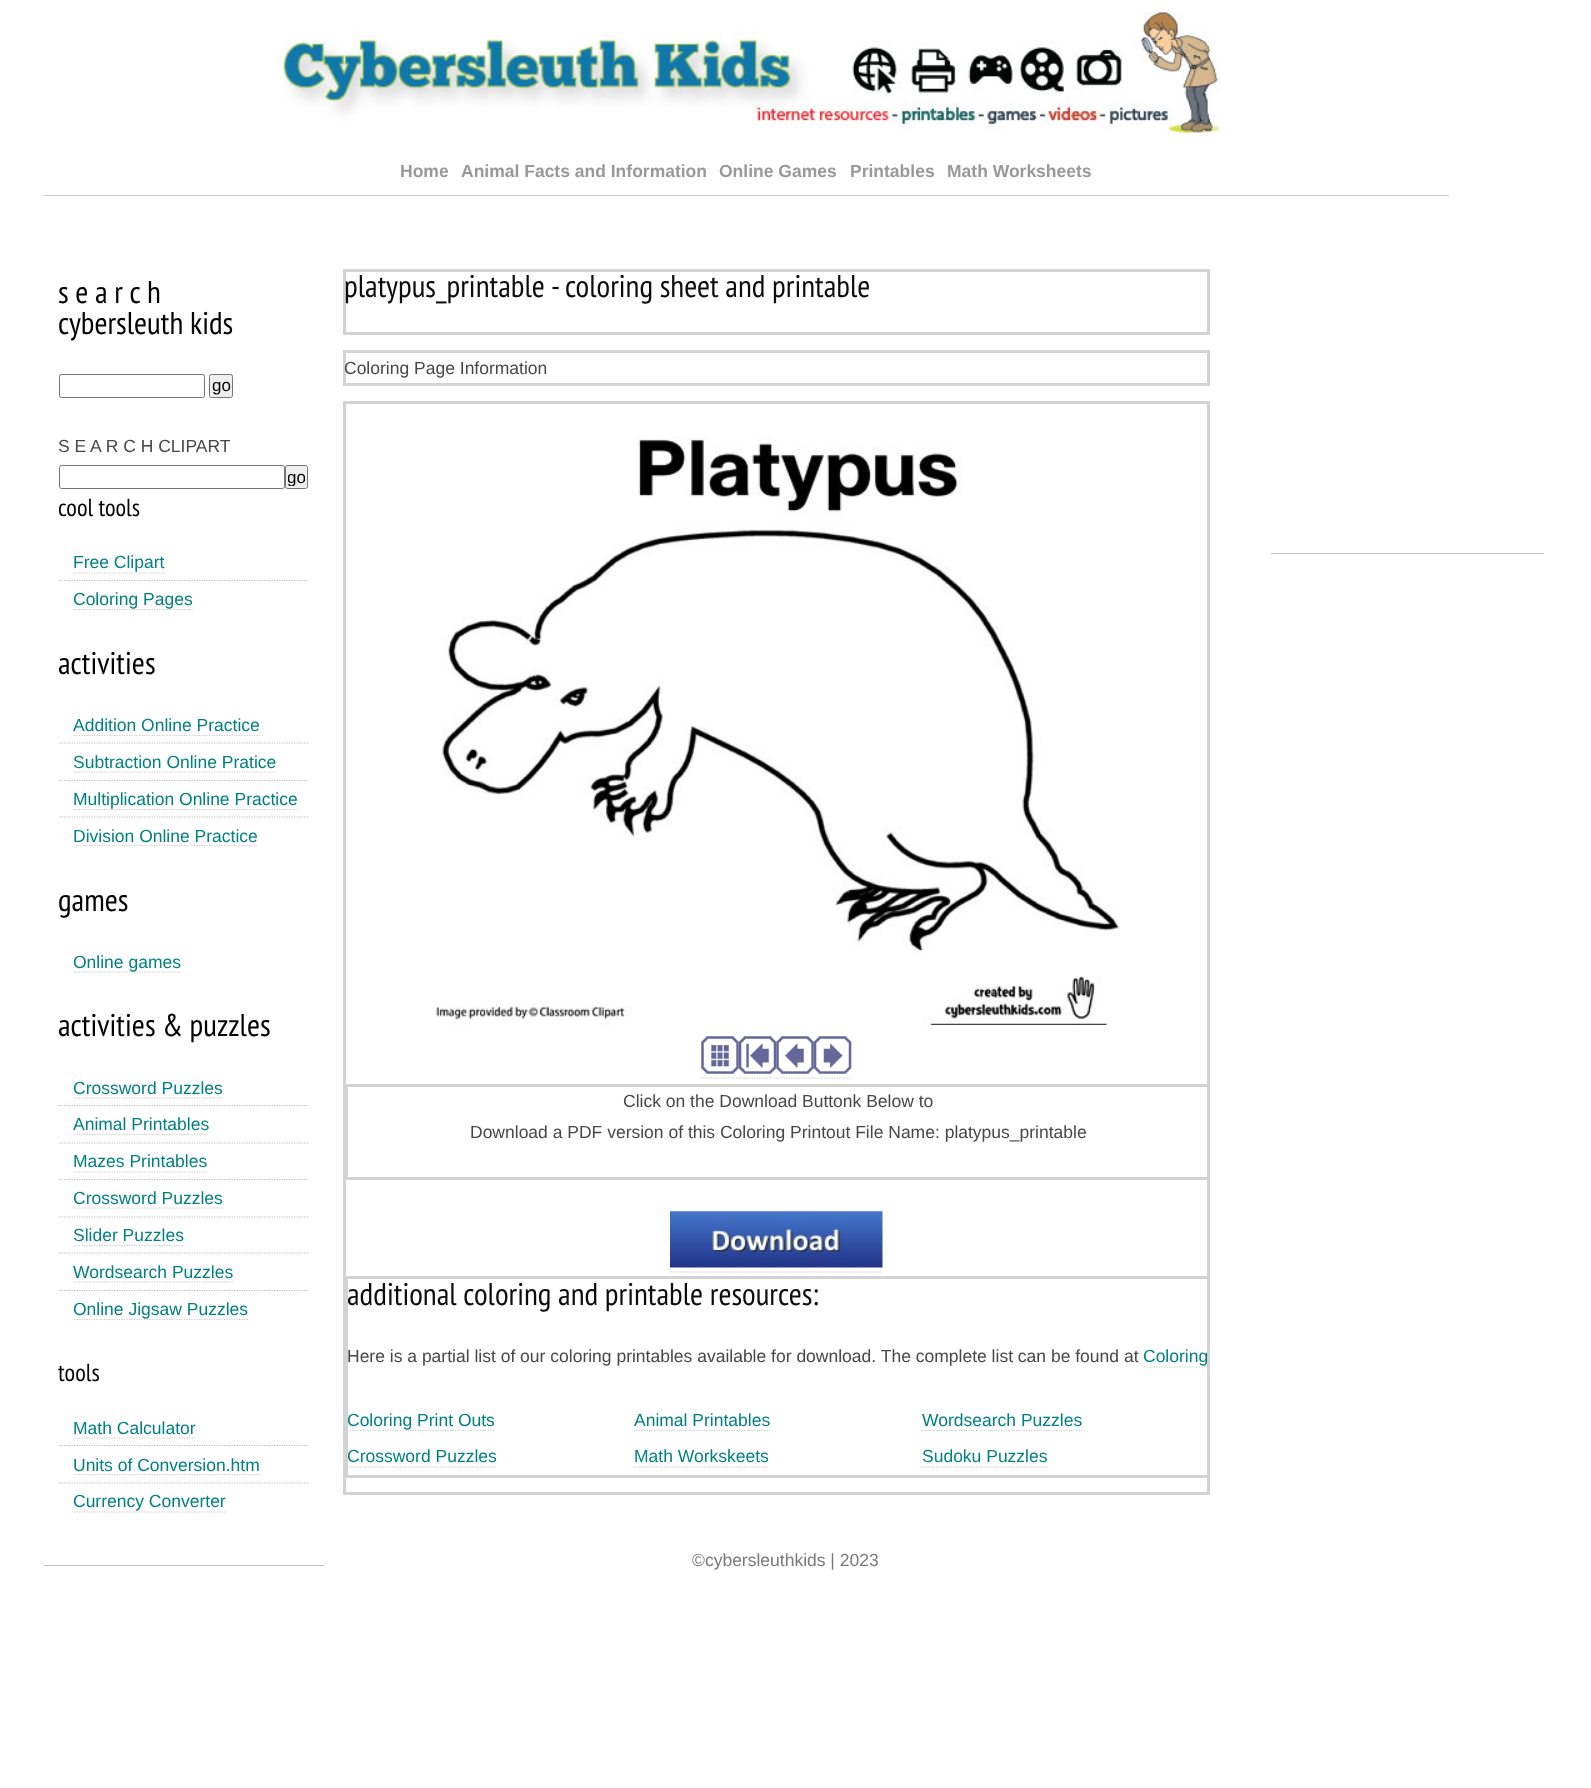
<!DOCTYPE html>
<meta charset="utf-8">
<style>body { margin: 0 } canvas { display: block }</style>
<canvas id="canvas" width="1591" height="1788"></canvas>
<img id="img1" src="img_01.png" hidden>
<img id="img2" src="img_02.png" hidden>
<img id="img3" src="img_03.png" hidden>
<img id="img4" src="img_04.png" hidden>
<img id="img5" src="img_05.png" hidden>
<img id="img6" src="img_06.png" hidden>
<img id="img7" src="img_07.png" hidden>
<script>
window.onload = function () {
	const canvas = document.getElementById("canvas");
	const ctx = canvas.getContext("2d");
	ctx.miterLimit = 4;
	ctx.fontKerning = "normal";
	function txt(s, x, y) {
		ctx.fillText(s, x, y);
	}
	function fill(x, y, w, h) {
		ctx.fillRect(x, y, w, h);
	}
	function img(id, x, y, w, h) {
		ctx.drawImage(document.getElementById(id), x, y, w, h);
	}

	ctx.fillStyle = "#FFFFFF";
	fill(0, 0, 1591, 1788);
	img("img1", 282, 11, 938, 122);
	ctx.fillStyle = "#CCCCCC";
	fill(44, 195, 1405, 1);
	ctx.fillStyle = "#C0C0C0";
	fill(44, 1565, 280, 1);
	ctx.beginPath();
	ctx.roundRect(59.5, 374.5, 145, 23, 2);
	ctx.strokeStyle = "#767676";
	ctx.stroke();
	ctx.fillStyle = "#EFEFEF";
	ctx.beginPath();
	ctx.roundRect(209.5, 374.5, 23, 23, 2);
	ctx.fill();
	ctx.stroke();
	ctx.beginPath();
	ctx.roundRect(59.5, 465.5, 225, 23, 2);
	ctx.stroke();
	ctx.beginPath();
	ctx.roundRect(285.5, 465.5, 22, 23, 2);
	ctx.fill();
	ctx.stroke();
	ctx.beginPath();
	ctx.moveTo(74, 573);
	ctx.lineTo(165, 573);
	ctx.strokeStyle = "#CCCCCC";
	ctx.lineWidth = 1.2;
	ctx.setLineDash([1.25, 1.25]);
	ctx.stroke();
	ctx.beginPath();
	ctx.moveTo(59, 580.5);
	ctx.lineTo(309, 580.5);
	ctx.strokeStyle = "#BDBDBD";
	ctx.stroke();
	ctx.beginPath();
	ctx.moveTo(74, 609.5);
	ctx.lineTo(192.5, 609.5);
	ctx.strokeStyle = "#CCCCCC";
	ctx.stroke();
	ctx.beginPath();
	ctx.moveTo(74, 735.5);
	ctx.lineTo(260, 735.5);
	ctx.stroke();
	ctx.beginPath();
	ctx.moveTo(59, 743);
	ctx.lineTo(309, 743);
	ctx.strokeStyle = "#BDBDBD";
	ctx.stroke();
	ctx.beginPath();
	ctx.moveTo(74, 772);
	ctx.lineTo(276, 772);
	ctx.strokeStyle = "#CCCCCC";
	ctx.stroke();
	ctx.beginPath();
	ctx.moveTo(59, 780.5);
	ctx.lineTo(309, 780.5);
	ctx.strokeStyle = "#BDBDBD";
	ctx.stroke();
	ctx.beginPath();
	ctx.moveTo(74, 809.5);
	ctx.lineTo(297.5, 809.5);
	ctx.strokeStyle = "#CCCCCC";
	ctx.stroke();
	ctx.beginPath();
	ctx.moveTo(59, 817);
	ctx.lineTo(309, 817);
	ctx.strokeStyle = "#BDBDBD";
	ctx.stroke();
	ctx.beginPath();
	ctx.moveTo(74, 845.5);
	ctx.lineTo(257.5, 845.5);
	ctx.strokeStyle = "#CCCCCC";
	ctx.stroke();
	ctx.beginPath();
	ctx.moveTo(74, 972);
	ctx.lineTo(181, 972);
	ctx.stroke();
	ctx.beginPath();
	ctx.moveTo(74, 1098);
	ctx.lineTo(222.5, 1098);
	ctx.stroke();
	ctx.beginPath();
	ctx.moveTo(59, 1105.5);
	ctx.lineTo(309, 1105.5);
	ctx.strokeStyle = "#BDBDBD";
	ctx.stroke();
	ctx.beginPath();
	ctx.moveTo(74, 1134.5);
	ctx.lineTo(209, 1134.5);
	ctx.strokeStyle = "#CCCCCC";
	ctx.stroke();
	ctx.beginPath();
	ctx.moveTo(59, 1143);
	ctx.lineTo(309, 1143);
	ctx.strokeStyle = "#BDBDBD";
	ctx.stroke();
	ctx.beginPath();
	ctx.moveTo(74, 1172);
	ctx.lineTo(207.5, 1172);
	ctx.strokeStyle = "#CCCCCC";
	ctx.stroke();
	ctx.beginPath();
	ctx.moveTo(59, 1179.5);
	ctx.lineTo(309, 1179.5);
	ctx.strokeStyle = "#BDBDBD";
	ctx.stroke();
	ctx.beginPath();
	ctx.moveTo(74, 1208);
	ctx.lineTo(222.5, 1208);
	ctx.strokeStyle = "#CCCCCC";
	ctx.stroke();
	ctx.beginPath();
	ctx.moveTo(59, 1217);
	ctx.lineTo(309, 1217);
	ctx.strokeStyle = "#BDBDBD";
	ctx.stroke();
	ctx.beginPath();
	ctx.moveTo(74, 1245.5);
	ctx.lineTo(184, 1245.5);
	ctx.strokeStyle = "#CCCCCC";
	ctx.stroke();
	ctx.beginPath();
	ctx.moveTo(59, 1253);
	ctx.lineTo(309, 1253);
	ctx.strokeStyle = "#BDBDBD";
	ctx.stroke();
	ctx.beginPath();
	ctx.moveTo(74, 1282);
	ctx.lineTo(234, 1282);
	ctx.strokeStyle = "#CCCCCC";
	ctx.stroke();
	ctx.beginPath();
	ctx.moveTo(59, 1290.5);
	ctx.lineTo(309, 1290.5);
	ctx.strokeStyle = "#BDBDBD";
	ctx.stroke();
	ctx.beginPath();
	ctx.moveTo(74, 1319.5);
	ctx.lineTo(249, 1319.5);
	ctx.strokeStyle = "#CCCCCC";
	ctx.stroke();
	ctx.beginPath();
	ctx.moveTo(74, 1438);
	ctx.lineTo(196, 1438);
	ctx.stroke();
	ctx.beginPath();
	ctx.moveTo(59, 1445.5);
	ctx.lineTo(309, 1445.5);
	ctx.strokeStyle = "#BDBDBD";
	ctx.stroke();
	ctx.beginPath();
	ctx.moveTo(74, 1474.5);
	ctx.lineTo(260, 1474.5);
	ctx.strokeStyle = "#CCCCCC";
	ctx.stroke();
	ctx.beginPath();
	ctx.moveTo(59, 1483);
	ctx.lineTo(309, 1483);
	ctx.strokeStyle = "#BDBDBD";
	ctx.stroke();
	ctx.beginPath();
	ctx.moveTo(74, 1512);
	ctx.lineTo(226, 1512);
	ctx.strokeStyle = "#CCCCCC";
	ctx.stroke();
	ctx.strokeStyle = "#D3D3D3";
	ctx.lineWidth = 3;
	ctx.setLineDash([]);
	ctx.strokeRect(344.5, 270.5, 864, 63);
	ctx.strokeRect(344.5, 351.5, 864, 33);
	ctx.strokeRect(344.5, 402.5, 864, 1091);
	img("img2", 433, 436, 687, 589);
	img("img3", 701, 1036, 38, 38);
	ctx.beginPath();
	ctx.moveTo(701, 1078);
	ctx.lineTo(739, 1078);
	ctx.strokeStyle = "#CCCCCC";
	ctx.lineWidth = 1.2;
	ctx.setLineDash([1.25, 1.25]);
	ctx.stroke();
	img("img4", 738, 1036, 39, 38);
	ctx.beginPath();
	ctx.moveTo(739, 1078);
	ctx.lineTo(776, 1078);
	ctx.stroke();
	img("img5", 776, 1036, 38, 38);
	ctx.beginPath();
	ctx.moveTo(776, 1078);
	ctx.lineTo(814, 1078);
	ctx.stroke();
	img("img6", 813, 1036, 39, 38);
	ctx.beginPath();
	ctx.moveTo(814, 1078);
	ctx.lineTo(851, 1078);
	ctx.stroke();
	ctx.save();
	ctx.beginPath();
	ctx.rect(345, 404, 863, 1089);
	ctx.clip();
	ctx.strokeStyle = "#D3D3D3";
	ctx.lineWidth = 3;
	ctx.setLineDash([]);
	ctx.strokeRect(346.5, 1085.5, 865, 93);
	ctx.restore();
	img("img7", 670, 1211, 213, 57);
	ctx.beginPath();
	ctx.moveTo(670, 1272);
	ctx.lineTo(882.5, 1272);
	ctx.stroke();
	ctx.save();
	ctx.beginPath();
	ctx.rect(345, 404, 863, 1089);
	ctx.clip();
	ctx.strokeStyle = "#D3D3D3";
	ctx.lineWidth = 3;
	ctx.setLineDash([]);
	ctx.strokeRect(346.5, 1277.5, 865, 199);
	ctx.restore();
	ctx.beginPath();
	ctx.moveTo(1144, 1367);
	ctx.lineTo(1209, 1367);
	ctx.stroke();
	ctx.beginPath();
	ctx.moveTo(347.5, 1430.5);
	ctx.lineTo(495, 1430.5);
	ctx.stroke();
	ctx.beginPath();
	ctx.moveTo(634, 1430.5);
	ctx.lineTo(770, 1430.5);
	ctx.stroke();
	ctx.beginPath();
	ctx.moveTo(921, 1430.5);
	ctx.lineTo(1082.5, 1430.5);
	ctx.stroke();
	ctx.beginPath();
	ctx.moveTo(347.5, 1467);
	ctx.lineTo(496, 1467);
	ctx.stroke();
	ctx.beginPath();
	ctx.moveTo(634, 1467);
	ctx.lineTo(769, 1467);
	ctx.stroke();
	ctx.beginPath();
	ctx.moveTo(921, 1467);
	ctx.lineTo(1047.5, 1467);
	ctx.stroke();
	ctx.fillStyle = "#C0C0C0";
	fill(1271, 553, 273, 1);
	ctx.font = "bold 17.5px Liberation Sans";
	ctx.fillStyle = "#999999";
	txt("Home", 400, 177);
	txt("Animal Facts and Information", 461, 177);
	txt("Online Games", 719, 177);
	txt("Printables", 850, 177);
	txt("Math Worksheets", 947, 177);
	ctx.font = "31.5px PT Sans Narrow";
	ctx.fillStyle = "#000000";
	txt("s e a r c h", 58, 303);
	txt("cybersleuth kids", 58, 334);
	ctx.font = "17px Liberation Sans";
	txt("go", 212, 391);
	ctx.font = "17.5px Liberation Sans";
	ctx.fillStyle = "#474747";
	txt("S E A R C H CLIPART", 58, 452);
	ctx.save();
	ctx.beginPath();
	ctx.rect(288, 468, 17, 18);
	ctx.clip();
	ctx.font = "17px Liberation Sans";
	ctx.fillStyle = "#000000";
	txt("go", 287, 483);
	ctx.restore();
	ctx.font = "24.5px PT Sans Narrow";
	ctx.fillStyle = "#000000";
	txt("cool tools", 58, 516);
	ctx.font = "17.5px Liberation Sans";
	ctx.fillStyle = "#008080";
	txt("Free Clipart", 73, 568);
	txt("Coloring Pages", 73, 605);
	ctx.font = "31.5px PT Sans Narrow";
	ctx.fillStyle = "#000000";
	txt("activities", 58, 674);
	ctx.font = "17.5px Liberation Sans";
	ctx.fillStyle = "#008080";
	txt("Addition Online Practice", 73, 731);
	txt("Subtraction Online Pratice", 73, 768);
	txt("Multiplication Online Practice", 73, 805);
	txt("Division Online Practice", 73, 842);
	ctx.font = "31.5px PT Sans Narrow";
	ctx.fillStyle = "#000000";
	txt("games", 58, 911);
	ctx.font = "17.5px Liberation Sans";
	ctx.fillStyle = "#008080";
	txt("Online games", 73, 968);
	ctx.font = "31.5px PT Sans Narrow";
	ctx.fillStyle = "#000000";
	txt("activities & puzzles", 58, 1036);
	ctx.font = "17.5px Liberation Sans";
	ctx.fillStyle = "#008080";
	txt("Crossword Puzzles", 73, 1094);
	txt("Animal Printables", 73, 1130);
	txt("Mazes Printables", 73, 1167);
	txt("Crossword Puzzles", 73, 1204);
	txt("Slider Puzzles", 73, 1241);
	txt("Wordsearch Puzzles", 73, 1278);
	txt("Online Jigsaw Puzzles", 73, 1315);
	ctx.font = "24.5px PT Sans Narrow";
	ctx.fillStyle = "#000000";
	txt("tools", 58, 1381);
	ctx.font = "17.5px Liberation Sans";
	ctx.fillStyle = "#008080";
	txt("Math Calculator", 73, 1434);
	txt("Units of Conversion.htm", 73, 1471);
	txt("Currency Converter", 73, 1507);
	ctx.font = "31.5px PT Sans Narrow";
	ctx.fillStyle = "#0D0D0D";
	txt("platypus_printable - coloring sheet and printable", 344, 297);
	ctx.font = "17.5px Liberation Sans";
	ctx.fillStyle = "#474747";
	txt("Coloring Page Information", 344, 374);
	txt("Click on the Download Buttonk Below to", 623, 1107);
	txt("Download a PDF version of this Coloring Printout File Name: platypus_printable", 470, 1138);
	ctx.save();
	ctx.beginPath();
	ctx.rect(348, 1279, 860, 196);
	ctx.clip();
	ctx.font = "31.5px PT Sans Narrow";
	ctx.fillStyle = "#0D0D0D";
	txt("additional coloring and printable resources:", 347, 1305);
	ctx.restore();
	txt("Here is a partial list of our coloring printables available for download. The complete list can be found at", 347, 1362);
	ctx.fillStyle = "#008080";
	txt("Coloring", 1143, 1362);
	ctx.save();
	ctx.beginPath();
	ctx.rect(348, 1279, 860, 196);
	ctx.clip();
	txt("Coloring Print Outs", 347, 1426);
	ctx.restore();
	txt("Animal Printables", 634, 1426);
	txt("Wordsearch Puzzles", 922, 1426);
	ctx.save();
	ctx.beginPath();
	ctx.rect(348, 1279, 860, 196);
	ctx.clip();
	txt("Crossword Puzzles", 347, 1462);
	ctx.restore();
	txt("Math Workskeets", 634, 1462);
	txt("Sudoku Puzzles", 922, 1462);
	ctx.fillStyle = "#787979";
	txt("©cybersleuthkids | 2023", 692, 1566);
};
</script>
